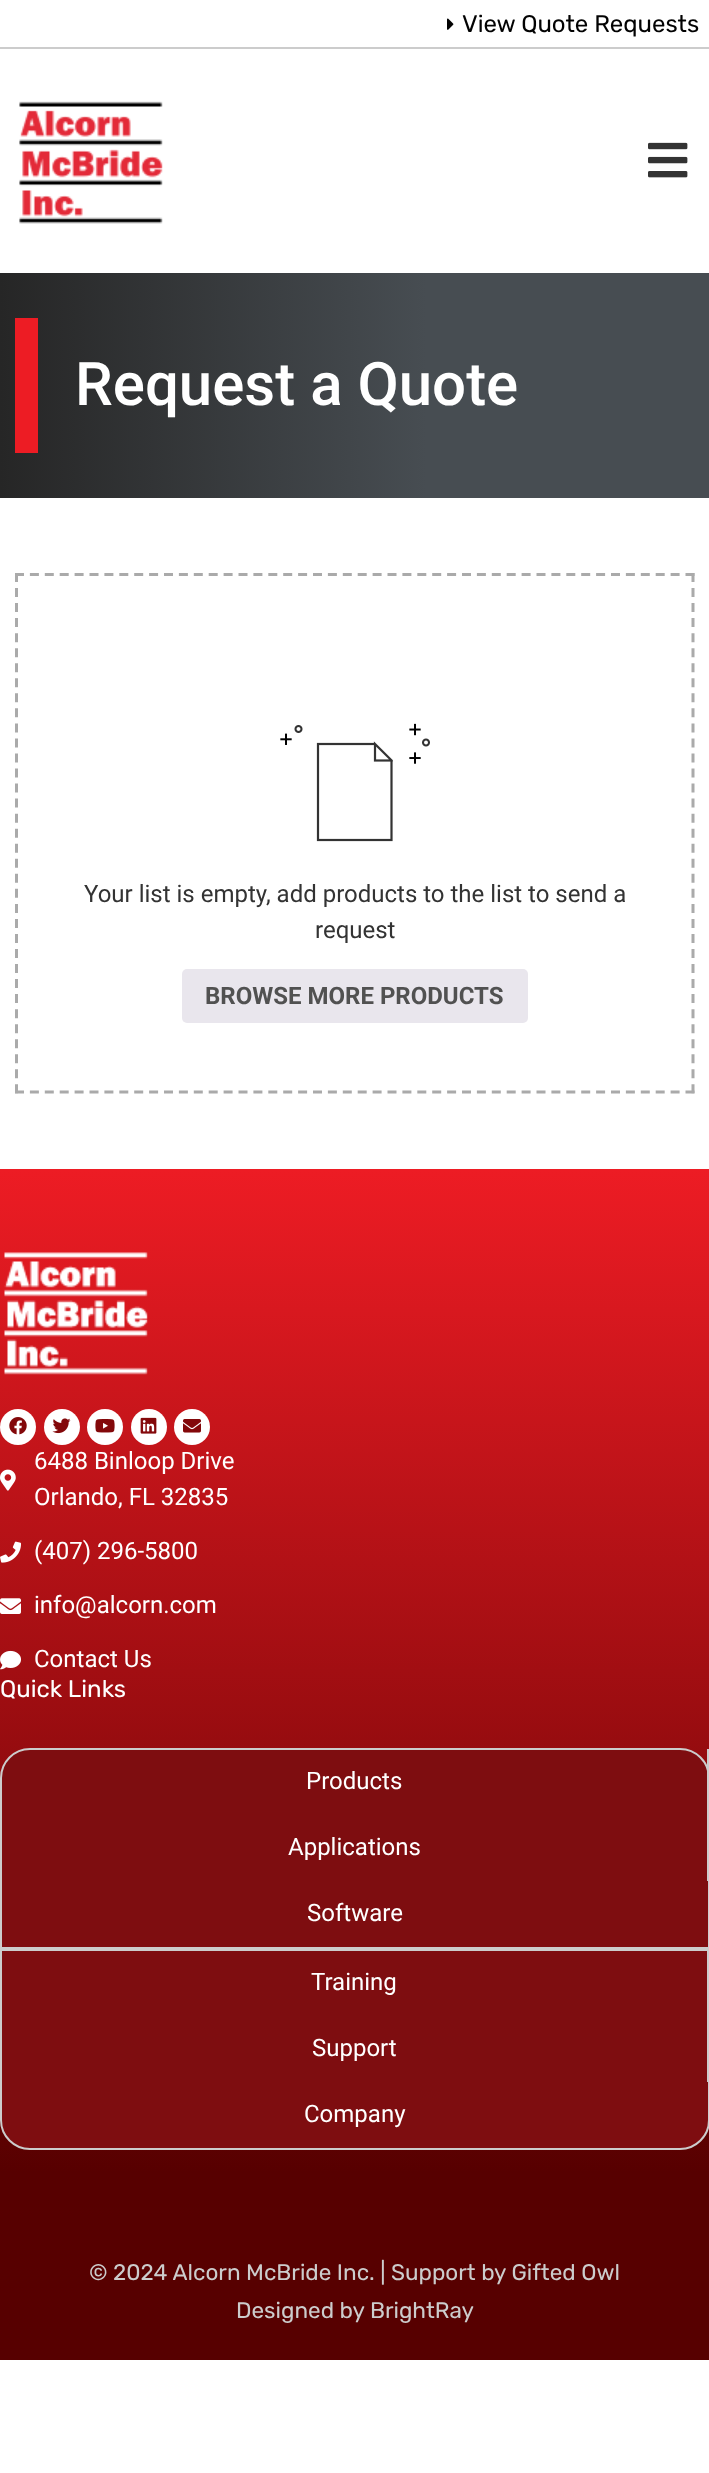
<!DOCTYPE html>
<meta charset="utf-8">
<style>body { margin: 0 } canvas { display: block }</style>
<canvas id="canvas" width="709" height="2473"></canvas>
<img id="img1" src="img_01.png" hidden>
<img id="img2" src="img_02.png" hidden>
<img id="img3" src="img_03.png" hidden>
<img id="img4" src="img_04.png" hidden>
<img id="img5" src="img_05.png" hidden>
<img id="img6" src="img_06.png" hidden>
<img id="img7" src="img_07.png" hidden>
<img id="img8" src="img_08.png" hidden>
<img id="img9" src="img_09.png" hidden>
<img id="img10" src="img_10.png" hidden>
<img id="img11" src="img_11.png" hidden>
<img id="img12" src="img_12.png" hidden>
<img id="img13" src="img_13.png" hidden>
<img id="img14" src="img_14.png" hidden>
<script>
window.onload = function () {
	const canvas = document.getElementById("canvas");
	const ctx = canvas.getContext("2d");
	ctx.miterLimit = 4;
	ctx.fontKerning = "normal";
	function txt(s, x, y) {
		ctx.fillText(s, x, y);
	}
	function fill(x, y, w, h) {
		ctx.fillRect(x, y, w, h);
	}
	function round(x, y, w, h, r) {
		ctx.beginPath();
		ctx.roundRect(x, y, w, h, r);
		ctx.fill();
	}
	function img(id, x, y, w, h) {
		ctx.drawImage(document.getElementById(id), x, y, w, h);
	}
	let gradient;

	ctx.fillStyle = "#FFFFFF";
	fill(0, 0, 709, 2473);
	ctx.fillStyle = "#CCCCCC";
	fill(0, 47, 709, 2);
	img("img1", 447, 18, 7, 12);
	img("img2", 19, 101, 144, 123);
	img("img3", 648, 142, 40, 36);
	gradient = ctx.createLinearGradient(0, 386, 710, 386);
	gradient.addColorStop(0, "#262626");
	gradient.addColorStop(0.6, "#474D52");
	ctx.fillStyle = gradient;
	fill(0, 273, 709, 225);
	ctx.fillStyle = "#ED1C24";
	fill(15, 318, 23, 135);
	ctx.beginPath();
	ctx.moveTo(15, 574.5);
	ctx.lineTo(694.5, 574.5);
	ctx.strokeStyle = "#AAAAAA";
	ctx.lineWidth = 3;
	ctx.setLineDash([9, 5.9]);
	ctx.stroke();
	ctx.beginPath();
	ctx.moveTo(693, 573);
	ctx.lineTo(693, 1093.5);
	ctx.setLineDash([9, 6.04]);
	ctx.stroke();
	ctx.beginPath();
	ctx.moveTo(15, 1092);
	ctx.lineTo(694.5, 1092);
	ctx.setLineDash([9, 5.9]);
	ctx.stroke();
	ctx.beginPath();
	ctx.moveTo(16.5, 573);
	ctx.lineTo(16.5, 1093.5);
	ctx.setLineDash([9, 6.04]);
	ctx.stroke();
	img("img4", 280, 723, 150, 119);
	ctx.fillStyle = "#E9E6ED";
	round(182, 969, 346, 54, 5);
	gradient = ctx.createLinearGradient(355, 1169, 355, 2225);
	gradient.addColorStop(0, "#ED1C24");
	gradient.addColorStop(0.95, "#570000");
	ctx.fillStyle = gradient;
	fill(0, 1169, 709, 1056);
	img("img5", 4, 1252, 144, 123);
	ctx.fillStyle = "#FFFFFF";
	ctx.beginPath();
	ctx.arc(18, 1427, 18, 0, Math.PI * 2);
	ctx.fill();
	img("img6", 9, 1417, 18, 18);
	ctx.beginPath();
	ctx.arc(62, 1427, 18, 0, Math.PI * 2);
	ctx.fill();
	img("img7", 52, 1418, 19, 16);
	ctx.beginPath();
	ctx.arc(105, 1427, 18, 0, Math.PI * 2);
	ctx.fill();
	img("img8", 95, 1419, 20, 14);
	ctx.beginPath();
	ctx.arc(149, 1427, 18, 0, Math.PI * 2);
	ctx.fill();
	img("img9", 140, 1417, 17, 17);
	ctx.beginPath();
	ctx.arc(192, 1427, 18, 0, Math.PI * 2);
	ctx.fill();
	img("img10", 183, 1419, 18, 14);
	img("img11", 0, 1469, 16, 22);
	img("img12", 0, 1541, 21, 22);
	img("img13", 0, 1598, 21, 16);
	img("img14", 0, 1650, 21, 20);
	ctx.fillStyle = "#7E0D10";
	ctx.beginPath();
	ctx.moveTo(30, 1749);
	ctx.lineTo(680, 1749);
	ctx.bezierCurveTo(696, 1749, 709, 1762, 709, 1778);
	ctx.lineTo(709, 1948);
	ctx.lineTo(1, 1948);
	ctx.lineTo(1, 1778);
	ctx.bezierCurveTo(1, 1762, 14, 1749, 30, 1749);
	ctx.closePath();
	ctx.fill();
	ctx.strokeStyle = "#CCCCCC";
	ctx.lineWidth = 2;
	ctx.setLineDash([]);
	ctx.stroke();
	ctx.fillStyle = "#CCCCCC";
	fill(707, 1749, 2, 66);
	fill(707, 1815, 1, 66);
	ctx.fillStyle = "#7E0D10";
	ctx.beginPath();
	ctx.moveTo(1, 1950);
	ctx.lineTo(709, 1950);
	ctx.lineTo(709, 2120);
	ctx.bezierCurveTo(709, 2136, 696, 2149, 680, 2149);
	ctx.lineTo(30, 2149);
	ctx.bezierCurveTo(14, 2149, 1, 2136, 1, 2120);
	ctx.closePath();
	ctx.fill();
	ctx.stroke();
	ctx.fillStyle = "#CCCCCC";
	fill(707, 1950, 1, 132);
	ctx.fillStyle = "#570000";
	fill(0, 2225, 709, 135);
	ctx.font = "24px Rubik";
	ctx.fillStyle = "#020202";
	txt("View Quote Requests", 462, 32);
	ctx.font = "500 60px Roboto";
	ctx.fillStyle = "#FFFFFF";
	txt("Request a Quote", 75, 405);
	ctx.font = "24px Roboto";
	ctx.fillStyle = "#333333";
	txt("Your list is empty, add products to the list to send a", 84, 902);
	txt("request", 315, 938);
	ctx.font = "bold 24px Roboto";
	ctx.fillStyle = "#515151";
	txt("BROWSE MORE PRODUCTS", 205, 1004);
	ctx.font = "24px Roboto";
	ctx.fillStyle = "#FFFFFF";
	txt("6488 Binloop Drive", 34, 1469);
	txt("Orlando, FL 32835", 34, 1505);
	txt("(407) 296-5800", 34, 1559);
	txt("info@alcorn.com", 34, 1613);
	txt("Contact Us", 34, 1667);
	ctx.font = "24px Rubik";
	txt("Quick Links", 0, 1697);
	ctx.font = "24px Roboto";
	txt("Products", 306, 1789);
	txt("Applications", 288, 1855);
	txt("Software", 307, 1921);
	txt("Training", 311, 1990);
	txt("Support", 312, 2056);
	txt("Company", 304, 2122);
	ctx.font = "22.5px Rubik";
	ctx.fillStyle = "#CCCCCC";
	txt("© 2024 Alcorn McBride Inc. | Support by Gifted Owl", 89, 2280);
	txt("Designed by BrightRay", 236, 2318);
};
</script>
